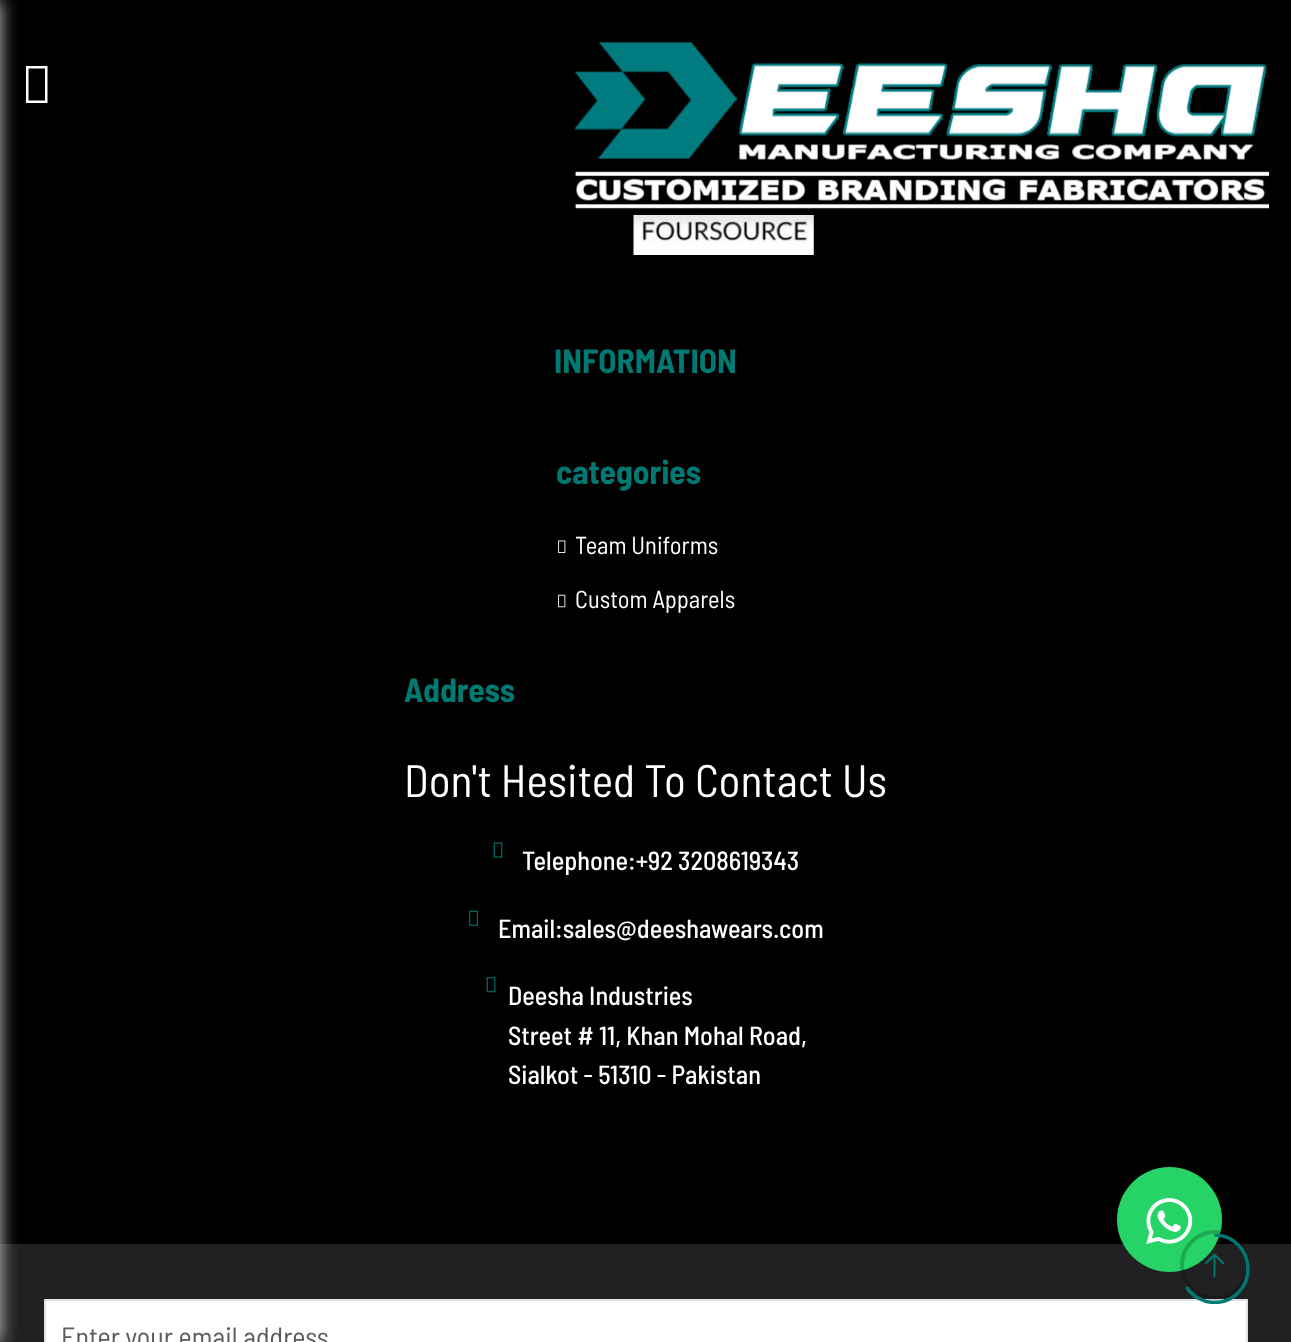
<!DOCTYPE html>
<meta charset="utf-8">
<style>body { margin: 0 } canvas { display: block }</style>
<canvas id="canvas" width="1291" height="1342"></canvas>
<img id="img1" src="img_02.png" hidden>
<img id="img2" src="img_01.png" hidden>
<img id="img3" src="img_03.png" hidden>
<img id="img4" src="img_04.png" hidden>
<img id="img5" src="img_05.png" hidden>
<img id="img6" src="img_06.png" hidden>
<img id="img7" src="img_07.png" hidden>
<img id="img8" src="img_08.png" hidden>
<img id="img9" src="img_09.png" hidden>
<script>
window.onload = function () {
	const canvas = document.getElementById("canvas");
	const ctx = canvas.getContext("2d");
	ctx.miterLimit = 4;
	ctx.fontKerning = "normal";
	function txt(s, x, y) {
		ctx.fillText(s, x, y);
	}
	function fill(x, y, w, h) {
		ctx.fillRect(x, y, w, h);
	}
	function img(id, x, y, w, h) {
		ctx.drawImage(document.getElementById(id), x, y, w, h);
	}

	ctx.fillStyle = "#000000";
	fill(0, 0, 1291, 1342);
	img("img1", 633, 215, 181, 40);
	ctx.fillStyle = "rgba(0, 0, 0, 0.1)";
	ctx.filter = "blur(5px)";
	ctx.beginPath();
	ctx.rect(0, 7, 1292, 215);
	ctx.fill();
	ctx.filter = "none";
	ctx.fillStyle = "#FFFFFF";
	ctx.beginPath();
	ctx.moveTo(26, 103);
	ctx.lineTo(26, 66);
	ctx.lineTo(47.5, 66);
	ctx.lineTo(47.5, 103);
	ctx.closePath();
	ctx.moveTo(28.5, 100.5);
	ctx.lineTo(45, 100.5);
	ctx.lineTo(45, 68.5);
	ctx.lineTo(28.5, 68.5);
	ctx.closePath();
	ctx.fill();
	ctx.fillStyle = "#212121";
	fill(0, 1244, 1291, 98);
	ctx.fillStyle = "#CFCFCF";
	ctx.filter = "blur(9px)";
	ctx.beginPath();
	ctx.rect(-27, 0, 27, 1342);
	ctx.fill();
	ctx.filter = "none";
	img("img2", 574, 42, 696, 167);
	img("img3", 558, 540, 8, 13);
	img("img4", 558, 594, 8, 14);
	img("img5", 493, 842, 10, 16);
	img("img6", 469, 910, 9, 16);
	img("img7", 486, 977, 10, 16);
	ctx.fillStyle = "#25D366";
	ctx.beginPath();
	ctx.arc(1169.5, 1219.5, 52.5, 0, Math.PI * 2);
	ctx.fill();
	img("img8", 1146, 1198, 47, 46);
	ctx.fillStyle = "#FFFFFF";
	ctx.beginPath();
	ctx.rect(45, 1300, 1202, 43);
	ctx.fill();
	ctx.strokeStyle = "#DEE2E6";
	ctx.lineWidth = 2;
	ctx.stroke();
	ctx.beginPath();
	ctx.arc(1215, 1265, 33, 0, Math.PI * 2);
	ctx.strokeStyle = "rgba(0, 0, 0, 0.2)";
	ctx.lineWidth = 4;
	ctx.stroke();
	ctx.save();
	ctx.beginPath();
	ctx.rect(1180, 1234, 70, 70);
	ctx.clip();
	ctx.beginPath();
	ctx.moveTo(1214.5, 1235);
	ctx.bezierCurveTo(1233, 1235, 1248, 1250, 1248, 1269);
	ctx.bezierCurveTo(1248, 1287.5, 1233, 1302.5, 1214.5, 1302.5);
	ctx.bezierCurveTo(1203, 1302.5, 1192.5, 1296.5, 1186.5, 1287);
	ctx.strokeStyle = "#007973";
	ctx.lineWidth = 3.4;
	ctx.stroke();
	ctx.restore();
	img("img9", 1204, 1253, 21, 25);
	ctx.font = "bold 33.5px Barlow Semi Condensed";
	ctx.fillStyle = "#007973";
	txt("INFORMATION", 554, 373);
	txt("categories", 556, 484);
	ctx.font = "24.5px Barlow Semi Condensed";
	ctx.fillStyle = "#FFFFFF";
	txt("Team Uniforms", 575, 554);
	txt("Custom Apparels", 575, 608);
	ctx.font = "bold 33.5px Barlow Semi Condensed";
	ctx.fillStyle = "#007973";
	txt("Address", 404, 702);
	ctx.font = "45.5px Barlow Semi Condensed";
	ctx.fillStyle = "#FFFFFF";
	txt("Don't Hesited To Contact Us", 404, 797);
	ctx.font = "500 26.25px Barlow Semi Condensed";
	txt("Telephone:+92 3208619343", 522, 870);
	txt("Email:sales@deeshawears.com", 498, 938);
	txt("Deesha Industries", 508, 1005);
	txt("Street # 11, Khan Mohal Road,", 508, 1045);
	txt("Sialkot - 51310 - Pakistan", 508, 1084);
	ctx.font = "28px Barlow Semi Condensed";
	ctx.fillStyle = "#595C5F";
	txt("Enter your email address", 61, 1347);
};
</script>
